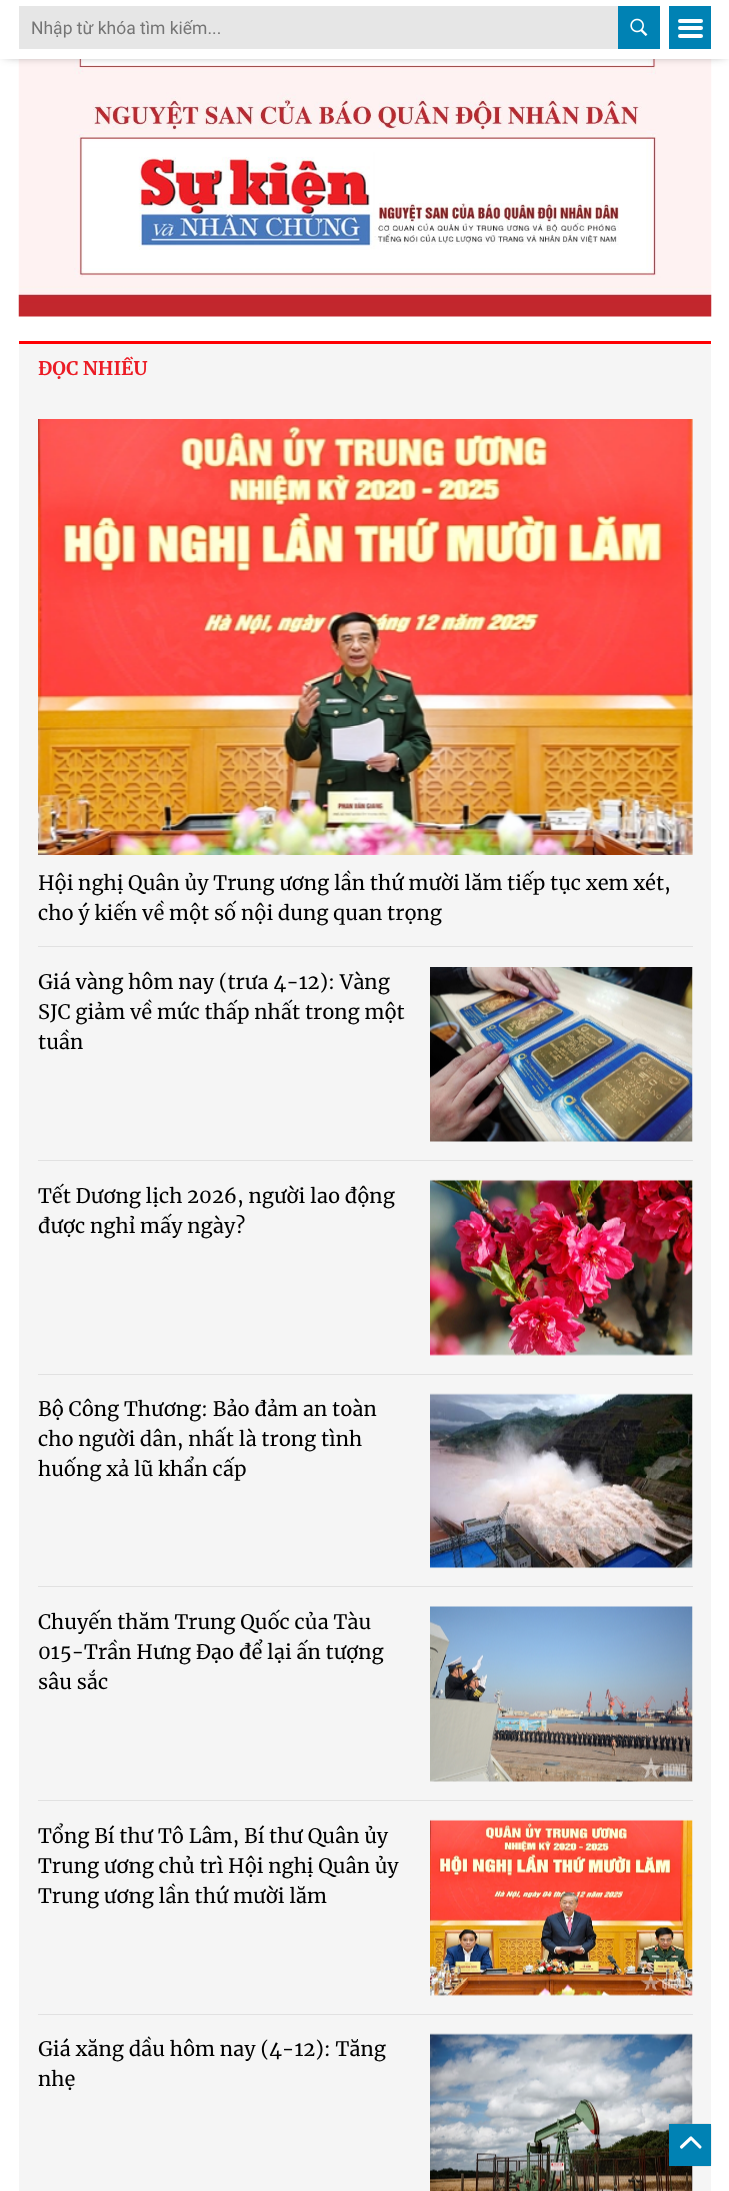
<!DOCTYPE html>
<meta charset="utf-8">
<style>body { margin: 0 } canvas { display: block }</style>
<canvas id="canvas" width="729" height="2191"></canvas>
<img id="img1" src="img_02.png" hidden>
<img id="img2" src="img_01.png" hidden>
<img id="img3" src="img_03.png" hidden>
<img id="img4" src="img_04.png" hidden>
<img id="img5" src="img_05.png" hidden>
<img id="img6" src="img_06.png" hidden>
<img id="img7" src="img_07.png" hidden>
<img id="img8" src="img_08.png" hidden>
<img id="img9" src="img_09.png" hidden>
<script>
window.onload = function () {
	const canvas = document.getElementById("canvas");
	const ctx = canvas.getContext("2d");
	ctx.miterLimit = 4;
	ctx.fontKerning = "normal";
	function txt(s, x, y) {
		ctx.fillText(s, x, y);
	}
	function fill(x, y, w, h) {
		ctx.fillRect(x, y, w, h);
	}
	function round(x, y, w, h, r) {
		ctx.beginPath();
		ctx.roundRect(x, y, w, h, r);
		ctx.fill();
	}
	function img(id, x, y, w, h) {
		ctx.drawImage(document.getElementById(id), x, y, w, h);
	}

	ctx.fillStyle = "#FFFFFF";
	fill(0, 0, 729, 2191);
	img("img1", 18, 59, 694, 258);
	ctx.fillStyle = "#333333";
	ctx.filter = "blur(6px)";
	ctx.beginPath();
	ctx.rect(5, 4, 720, 49);
	ctx.fill();
	ctx.filter = "none";
	ctx.fillStyle = "#FFFFFF";
	fill(0, 0, 729, 59);
	ctx.fillStyle = "#E6E6E6";
	fill(19, 6, 599, 43);
	ctx.fillStyle = "#0082B4";
	fill(618, 6, 42, 43);
	img("img2", 630, 18, 18, 18);
	fill(669, 6, 42, 43);
	ctx.fillStyle = "#FFFFFF";
	round(678, 26, 25, 4, 2);
	round(678, 19, 25, 4, 2);
	round(678, 34, 25, 4, 2);
	ctx.fillStyle = "#F5F5F5";
	fill(19, 344, 692, 1847);
	ctx.fillStyle = "#FF0003";
	fill(19, 341, 692, 3);
	ctx.fillStyle = "#E1E1E1";
	fill(38, 946, 655, 1);
	img("img3", 38, 419, 655, 436);
	fill(38, 1160, 655, 1);
	img("img4", 430, 967, 263, 175);
	fill(38, 1374, 655, 1);
	img("img5", 430, 1179, 263, 177);
	fill(38, 1586, 655, 1);
	img("img6", 430, 1393, 263, 176);
	fill(38, 1800, 655, 1);
	img("img7", 430, 1606, 263, 176);
	fill(38, 2014, 655, 1);
	img("img8", 430, 1819, 263, 177);
	img("img9", 430, 2033, 263, 158);
	ctx.fillStyle = "#505050";
	ctx.filter = "blur(1px)";
	ctx.beginPath();
	ctx.rect(670, 2125, 40, 40);
	ctx.fill();
	ctx.filter = "none";
	ctx.fillStyle = "#0082B4";
	fill(669, 2124, 42, 42);
	ctx.beginPath();
	ctx.moveTo(681.5, 2147);
	ctx.lineTo(691, 2138);
	ctx.lineTo(700, 2147);
	ctx.strokeStyle = "#FFFFFF";
	ctx.lineWidth = 3.1;
	ctx.lineCap = "round";
	ctx.lineJoin = "round";
	ctx.stroke();
	ctx.font = "17.5px Roboto";
	ctx.fillStyle = "#757575";
	txt("Nhập từ khóa tìm kiếm...", 31, 34);
	ctx.font = "bold 18.75px Merriweather";
	ctx.fillStyle = "#EC1C25";
	txt("ĐỌC NHIỀU", 38, 375);
	ctx.font = "20px Merriweather";
	ctx.fillStyle = "#000000";
	txt("Hội nghị Quân ủy Trung ương lần thứ mười lăm tiếp tục xem xét,", 38, 890);
	txt("cho ý kiến về một số nội dung quan trọng", 38, 920);
	txt("Giá vàng hôm nay (trưa 4-12): Vàng", 38, 989);
	txt("SJC giảm về mức thấp nhất trong một", 38, 1019);
	txt("tuần", 38, 1049);
	txt("Tết Dương lịch 2026, người lao động", 38, 1203);
	txt("được nghỉ mấy ngày?", 38, 1233);
	txt("Bộ Công Thương: Bảo đảm an toàn", 38, 1416);
	txt("cho người dân, nhất là trong tình", 38, 1446);
	txt("huống xả lũ khẩn cấp", 38, 1476);
	txt("Chuyến thăm Trung Quốc của Tàu", 38, 1629);
	txt("015-Trần Hưng Đạo để lại ấn tượng", 38, 1659);
	txt("sâu sắc", 38, 1689);
	txt("Tổng Bí thư Tô Lâm, Bí thư Quân ủy", 38, 1843);
	txt("Trung ương chủ trì Hội nghị Quân ủy", 38, 1873);
	txt("Trung ương lần thứ mười lăm", 38, 1903);
	txt("Giá xăng dầu hôm nay (4-12): Tăng", 38, 2056);
	txt("nhẹ", 38, 2086);
};
</script>
